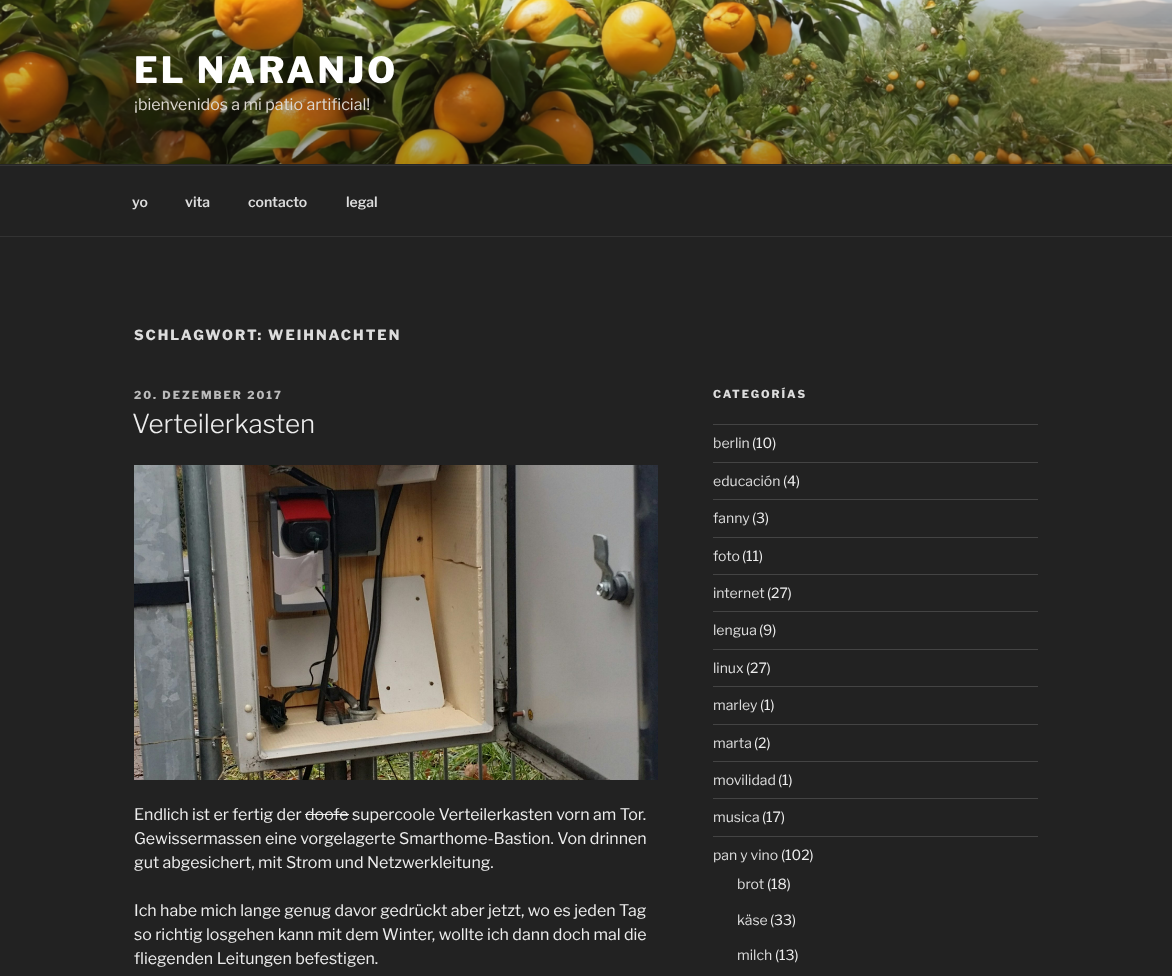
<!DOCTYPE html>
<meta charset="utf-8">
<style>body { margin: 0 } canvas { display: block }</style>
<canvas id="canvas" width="1172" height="976"></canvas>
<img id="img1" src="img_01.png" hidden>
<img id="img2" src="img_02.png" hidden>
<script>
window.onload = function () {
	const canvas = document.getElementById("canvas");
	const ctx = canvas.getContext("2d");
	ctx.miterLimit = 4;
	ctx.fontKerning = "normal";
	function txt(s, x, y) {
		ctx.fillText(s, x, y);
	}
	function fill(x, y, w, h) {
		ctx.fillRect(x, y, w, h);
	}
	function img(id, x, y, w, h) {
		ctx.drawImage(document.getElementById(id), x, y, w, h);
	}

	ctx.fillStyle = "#222222";
	fill(0, 0, 1172, 976);
	ctx.fillStyle = "#262626";
	fill(0, 164, 1172, 1);
	img("img1", 0, 0, 1172, 164);
	ctx.fillStyle = "#333333";
	fill(0, 165, 1172, 1);
	fill(0, 236, 1172, 1);
	img("img2", 134, 465, 524, 315);
	ctx.fillStyle = "#EEEEEE";
	fill(305, 814, 44, 1);
	ctx.fillStyle = "#444444";
	fill(713, 424, 325, 1);
	fill(713, 462, 325, 1);
	fill(713, 499, 325, 1);
	fill(713, 537, 325, 1);
	fill(713, 574, 325, 1);
	fill(713, 611, 325, 1);
	fill(713, 649, 325, 1);
	fill(713, 686, 325, 1);
	fill(713, 724, 325, 1);
	fill(713, 761, 325, 1);
	fill(713, 798, 325, 1);
	fill(713, 836, 325, 1);
	ctx.letterSpacing = "2.9px";
	ctx.font = "100 36px Libre Franklin";
	ctx.fillStyle = "#FFFFFF";
	txt("EL NARANJO", 134, 83);
	ctx.letterSpacing = "0px";
	ctx.font = "100 16px 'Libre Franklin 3'";
	ctx.fillStyle = "#DDD8D1";
	txt("¡bienvenidos a mi patio artificial!", 134, 110);
	ctx.font = "100 14px 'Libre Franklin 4'";
	ctx.fillStyle = "#DDDDDD";
	txt("yo", 132, 207);
	txt("vita", 185, 207);
	txt("contacto", 248, 207);
	txt("legal", 346, 207);
	ctx.letterSpacing = "2px";
	ctx.font = "100 14px Libre Franklin";
	txt("SCHLAGWORT: WEIHNACHTEN", 134, 340);
	ctx.font = "100 11px Libre Franklin";
	ctx.fillStyle = "#BBBBBB";
	txt("20. DEZEMBER 2017", 134, 399);
	ctx.letterSpacing = "0px";
	ctx.font = "100 26px 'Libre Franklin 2'";
	ctx.fillStyle = "#EEEEEE";
	txt("Verteilerkasten", 132, 433);
	ctx.font = "100 16px 'Libre Franklin 3'";
	txt("Endlich ist er fertig der doofe supercoole Verteilerkasten vorn am Tor.", 134, 820);
	txt("Gewissermassen eine vorgelagerte Smarthome-Bastion. Von drinnen", 134, 844);
	txt("gut abgesichert, mit Strom und Netzwerkleitung.", 134, 868);
	txt("Ich habe mich lange genug davor gedrückt aber jetzt, wo es jeden Tag", 134, 916);
	txt("so richtig losgehen kann mit dem Winter, wollte ich dann doch mal die", 134, 940);
	txt("fliegenden Leitungen befestigen.", 134, 964);
	ctx.letterSpacing = "2px";
	ctx.font = "100 11px Libre Franklin";
	ctx.fillStyle = "#DDDDDD";
	txt("CATEGORÍAS", 713, 398);
	ctx.letterSpacing = "0px";
	ctx.font = "100 14px 'Libre Franklin 3'";
	txt("berlin", 713, 448);
	ctx.fillStyle = "#EEEEEE";
	txt("(10)", 752, 448);
	ctx.fillStyle = "#DDDDDD";
	txt("educación", 713, 486);
	ctx.fillStyle = "#EEEEEE";
	txt("(4)", 783, 486);
	ctx.fillStyle = "#DDDDDD";
	txt("fanny", 713, 523);
	ctx.fillStyle = "#EEEEEE";
	txt("(3)", 752, 523);
	ctx.fillStyle = "#DDDDDD";
	txt("foto", 713, 561);
	ctx.fillStyle = "#EEEEEE";
	txt("(11)", 742, 561);
	ctx.fillStyle = "#DDDDDD";
	txt("internet", 713, 598);
	ctx.fillStyle = "#EEEEEE";
	txt("(27)", 767, 598);
	ctx.fillStyle = "#DDDDDD";
	txt("lengua", 713, 635);
	ctx.fillStyle = "#EEEEEE";
	txt("(9)", 759, 635);
	ctx.fillStyle = "#DDDDDD";
	txt("linux", 713, 673);
	ctx.fillStyle = "#EEEEEE";
	txt("(27)", 746, 673);
	ctx.fillStyle = "#DDDDDD";
	txt("marley", 713, 710);
	ctx.fillStyle = "#EEEEEE";
	txt("(1)", 760, 710);
	ctx.fillStyle = "#DDDDDD";
	txt("marta", 713, 748);
	ctx.fillStyle = "#EEEEEE";
	txt("(2)", 754, 748);
	ctx.fillStyle = "#DDDDDD";
	txt("movilidad", 713, 785);
	ctx.fillStyle = "#EEEEEE";
	txt("(1)", 778, 785);
	ctx.fillStyle = "#DDDDDD";
	txt("musica", 713, 822);
	ctx.fillStyle = "#EEEEEE";
	txt("(17)", 762, 822);
	ctx.fillStyle = "#DDDDDD";
	txt("pan y vino", 713, 860);
	ctx.fillStyle = "#EEEEEE";
	txt("(102)", 781, 860);
	ctx.fillStyle = "#DDDDDD";
	txt("brot", 737, 889);
	ctx.fillStyle = "#EEEEEE";
	txt("(18)", 767, 889);
	ctx.fillStyle = "#DDDDDD";
	txt("käse", 737, 925);
	ctx.fillStyle = "#EEEEEE";
	txt("(33)", 770, 925);
	ctx.fillStyle = "#DDDDDD";
	txt("milch", 737, 960);
	ctx.fillStyle = "#EEEEEE";
	txt("(13)", 775, 960);
};
</script>
